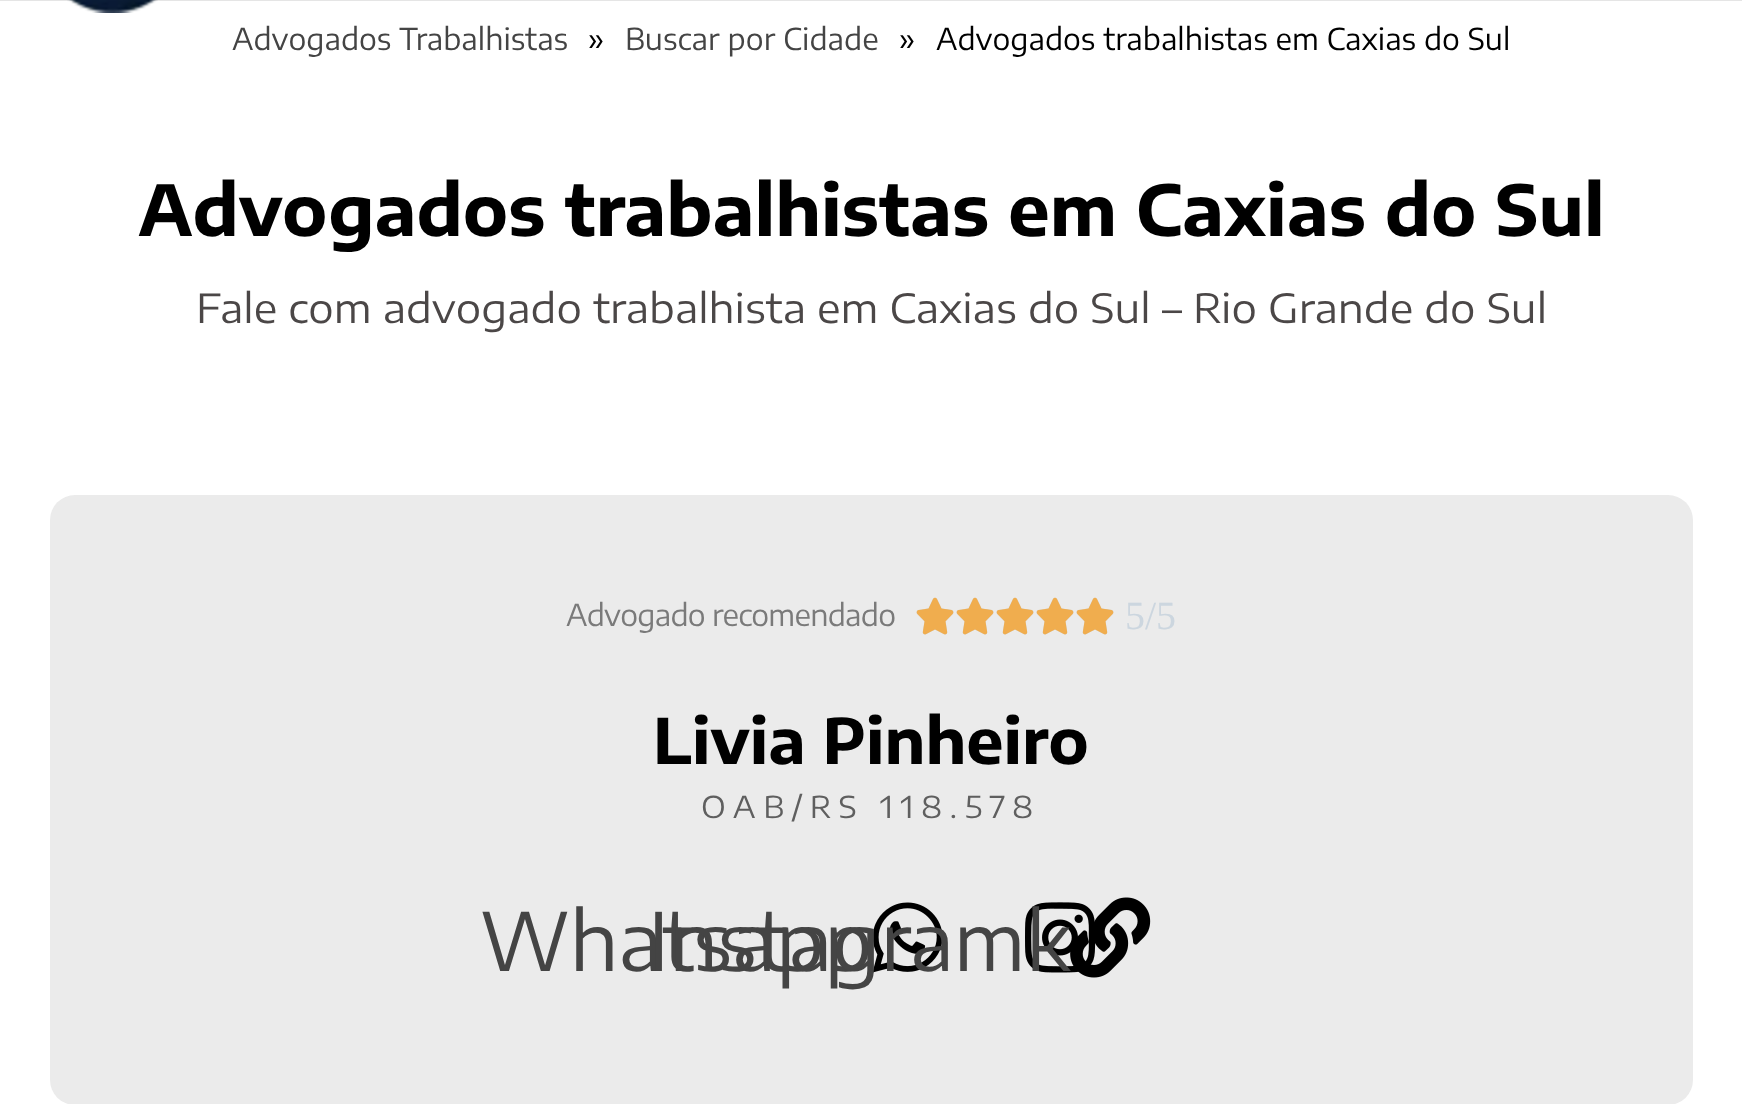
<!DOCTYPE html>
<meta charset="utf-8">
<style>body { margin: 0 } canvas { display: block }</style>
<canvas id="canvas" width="1742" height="1104"></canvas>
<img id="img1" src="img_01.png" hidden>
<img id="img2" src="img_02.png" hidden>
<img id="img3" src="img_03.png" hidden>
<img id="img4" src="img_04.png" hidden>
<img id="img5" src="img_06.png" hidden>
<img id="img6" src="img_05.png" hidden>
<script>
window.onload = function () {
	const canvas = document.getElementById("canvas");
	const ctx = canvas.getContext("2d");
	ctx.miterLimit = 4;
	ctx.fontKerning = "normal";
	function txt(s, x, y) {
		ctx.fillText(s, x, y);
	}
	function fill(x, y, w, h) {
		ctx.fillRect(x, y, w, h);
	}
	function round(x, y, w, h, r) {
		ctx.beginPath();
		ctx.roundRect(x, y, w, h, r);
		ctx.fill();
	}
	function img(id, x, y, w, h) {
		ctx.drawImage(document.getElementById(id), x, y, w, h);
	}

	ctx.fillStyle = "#FFFFFF";
	fill(0, 0, 1742, 1104);
	ctx.fillStyle = "#E5E5E5";
	fill(0, 0, 1742, 1);
	img("img1", 67, 0, 91, 13);
	ctx.fillStyle = "#EBEBEB";
	round(50, 495, 1643, 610, 25);
	img("img2", 916, 597, 38, 38);
	img("img3", 916, 597, 38, 38);
	img("img2", 956, 597, 38, 38);
	img("img3", 956, 597, 38, 38);
	img("img2", 996, 597, 38, 38);
	img("img3", 996, 597, 38, 38);
	img("img2", 1036, 597, 38, 38);
	img("img3", 1036, 597, 38, 38);
	img("img2", 1076, 597, 38, 38);
	img("img3", 1076, 597, 38, 38);
	img("img4", 872, 902, 71, 71);
	img("img5", 1025, 902, 71, 71);
	ctx.font = "30px Encode Sans Semi Expanded";
	ctx.fillStyle = "#444444";
	txt("Advogados Trabalhistas", 232, 50);
	ctx.fillStyle = "#000000";
	txt("»", 588, 50);
	ctx.fillStyle = "#444444";
	txt("Buscar por Cidade", 625, 50);
	ctx.fillStyle = "#000000";
	txt("»", 899, 50);
	txt("Advogados trabalhistas em Caxias do Sul", 936, 50);
	ctx.font = "bold 70px Encode Sans Semi Expanded";
	txt("Advogados trabalhistas em Caxias do Sul", 138, 236);
	ctx.font = "40px Encode Sans Expanded";
	ctx.fillStyle = "#4B4747";
	txt("Fale com advogado trabalhista em Caxias do Sul – Rio Grande do Sul", 196, 323);
	ctx.letterSpacing = "-0.75px";
	ctx.font = "30px Encode Sans Semi Expanded";
	ctx.fillStyle = "#7A7A7A";
	txt("Advogado recomendado", 566, 626);
	ctx.letterSpacing = "0px";
	ctx.font = "40px Liberation Serif";
	ctx.fillStyle = "#CCD6DF";
	txt("5/5", 1125, 629);
	ctx.font = "bold 62.5px Encode Sans Semi Expanded";
	ctx.fillStyle = "#000000";
	txt("Livia Pinheiro", 653, 764);
	ctx.letterSpacing = "7.5px";
	ctx.font = "30px Encode Sans Expanded";
	ctx.fillStyle = "#5F5F5F";
	txt("OAB/RS 118.578", 701, 818);
	ctx.letterSpacing = "0px";
	ctx.font = "80px Encode Sans Semi Expanded";
	ctx.fillStyle = "#444444";
	txt("Whatsapp", 480, 971);
	txt("k", 1026, 971);
	img("img6", 1070, 897, 81, 81);
	txt("Instagram", 648, 971);
};
</script>
